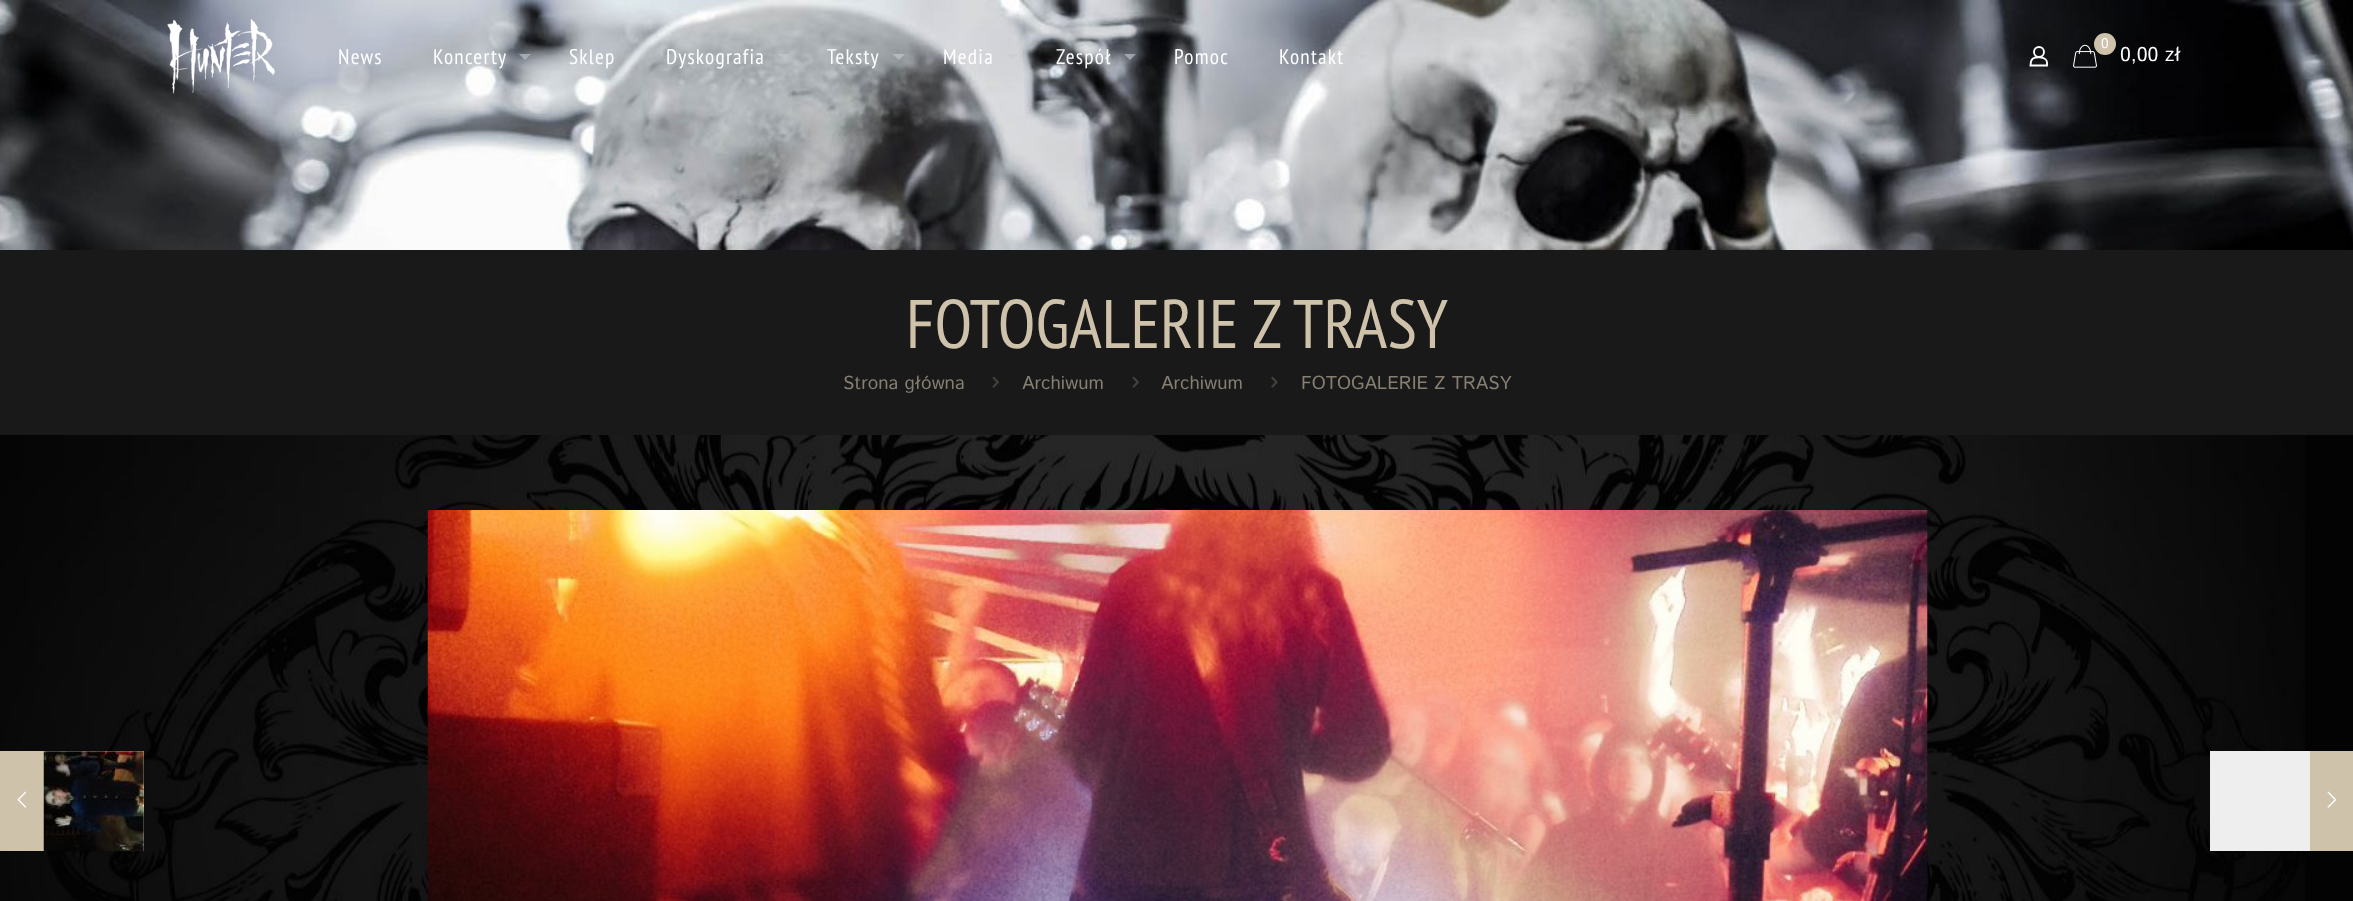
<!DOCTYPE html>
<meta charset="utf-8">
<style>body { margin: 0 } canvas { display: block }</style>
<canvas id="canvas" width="2353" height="901"></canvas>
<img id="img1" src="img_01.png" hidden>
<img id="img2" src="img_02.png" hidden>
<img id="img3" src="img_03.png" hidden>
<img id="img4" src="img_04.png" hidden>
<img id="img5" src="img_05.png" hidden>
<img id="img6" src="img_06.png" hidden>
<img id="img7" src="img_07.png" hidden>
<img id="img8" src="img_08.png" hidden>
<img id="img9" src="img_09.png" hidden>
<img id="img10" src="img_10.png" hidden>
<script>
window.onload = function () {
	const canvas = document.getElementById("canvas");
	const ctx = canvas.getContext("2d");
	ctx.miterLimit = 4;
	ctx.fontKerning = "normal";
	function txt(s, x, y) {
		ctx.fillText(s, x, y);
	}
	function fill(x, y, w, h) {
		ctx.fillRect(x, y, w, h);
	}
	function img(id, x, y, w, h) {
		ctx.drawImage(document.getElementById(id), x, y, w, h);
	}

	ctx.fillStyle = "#030303";
	fill(0, 0, 2353, 901);
	img("img1", 0, 435, 2305, 466);
	img("img2", 0, 0, 2353, 250);
	img("img3", 167, 18, 108, 76);
	ctx.fillStyle = "rgba(204, 204, 204, 0.6)";
	ctx.beginPath();
	ctx.moveTo(519, 54);
	ctx.lineTo(531, 54);
	ctx.lineTo(525, 60);
	ctx.closePath();
	ctx.fill();
	ctx.beginPath();
	ctx.moveTo(777.5, 54);
	ctx.lineTo(790, 54);
	ctx.lineTo(784, 60);
	ctx.closePath();
	ctx.fill();
	ctx.beginPath();
	ctx.moveTo(892.5, 54);
	ctx.lineTo(905, 54);
	ctx.lineTo(899, 60);
	ctx.closePath();
	ctx.fill();
	ctx.beginPath();
	ctx.moveTo(1006, 54);
	ctx.lineTo(1019, 54);
	ctx.lineTo(1012.5, 60);
	ctx.closePath();
	ctx.fill();
	ctx.beginPath();
	ctx.moveTo(1124, 54);
	ctx.lineTo(1136, 54);
	ctx.lineTo(1130, 60);
	ctx.closePath();
	ctx.fill();
	ctx.fillStyle = "#CFCFD1";
	ctx.beginPath();
	ctx.moveTo(1356, 54);
	ctx.lineTo(1369, 54);
	ctx.lineTo(1362.5, 60);
	ctx.closePath();
	ctx.fill();
	ctx.beginPath();
	ctx.arc(2039, 52, 5, 0, Math.PI * 2);
	ctx.strokeStyle = "#FFFFFF";
	ctx.lineWidth = 1.9;
	ctx.stroke();
	ctx.beginPath();
	ctx.moveTo(2047, 62.5);
	ctx.lineTo(2047, 65.5);
	ctx.lineTo(2030.5, 65.5);
	ctx.lineTo(2031, 61.5);
	ctx.bezierCurveTo(2032.5, 55.5, 2047, 56, 2047, 62.5);
	ctx.closePath();
	ctx.stroke();
	img("img4", 2073, 44, 24, 24);
	ctx.fillStyle = "#CEC2AB";
	ctx.beginPath();
	ctx.arc(2105, 44, 11, 0, Math.PI * 2);
	ctx.fill();
	ctx.fillStyle = "#191919";
	fill(0, 250, 2353, 185);
	img("img5", 992, 376, 7, 12);
	img("img5", 1132, 376, 7, 12);
	img("img6", 1271, 376, 7, 12);
	img("img7", 427, 510, 1501, 391);
	ctx.fillStyle = "#CEC2AB";
	fill(0, 751, 44, 100);
	img("img8", 17, 791, 10, 17);
	ctx.fillStyle = "#EEEEEE";
	fill(44, 751, 100, 100);
	img("img9", 43, 751, 101, 101);
	fill(2210, 751, 100, 100);
	ctx.fillStyle = "#CEC2AB";
	fill(2310, 751, 43, 100);
	img("img10", 2327, 791, 10, 17);
	ctx.letterSpacing = "1.25px";
	ctx.font = "21.25px PT Sans Narrow";
	ctx.fillStyle = "#FFFFFF";
	txt("News", 338, 64);
	txt("Koncerty", 433, 64);
	txt("Sklep", 569, 64);
	txt("Dyskografia", 666, 64);
	txt("Teksty", 827, 64);
	txt("Media", 943, 64);
	txt("Zespół", 1056, 64);
	txt("Pomoc", 1174, 64);
	txt("Kontakt", 1279, 64);
	ctx.letterSpacing = "0px";
	ctx.font = "14px Istok Web";
	txt("0", 2101, 48);
	ctx.font = "20px Istok Web";
	txt("0,00 zł", 2120, 61);
	ctx.font = "68.75px PT Sans Narrow";
	ctx.fillStyle = "#CEC2AB";
	txt("FOTOGALERIE Z TRASY", 906, 348);
	ctx.font = "18.75px Istok Web";
	ctx.fillStyle = "#867E71";
	txt("Strona główna", 843, 389);
	txt("Archiwum", 1022, 389);
	txt("Archiwum", 1161, 389);
	txt("FOTOGALERIE Z TRASY", 1301, 389);
};
</script>
